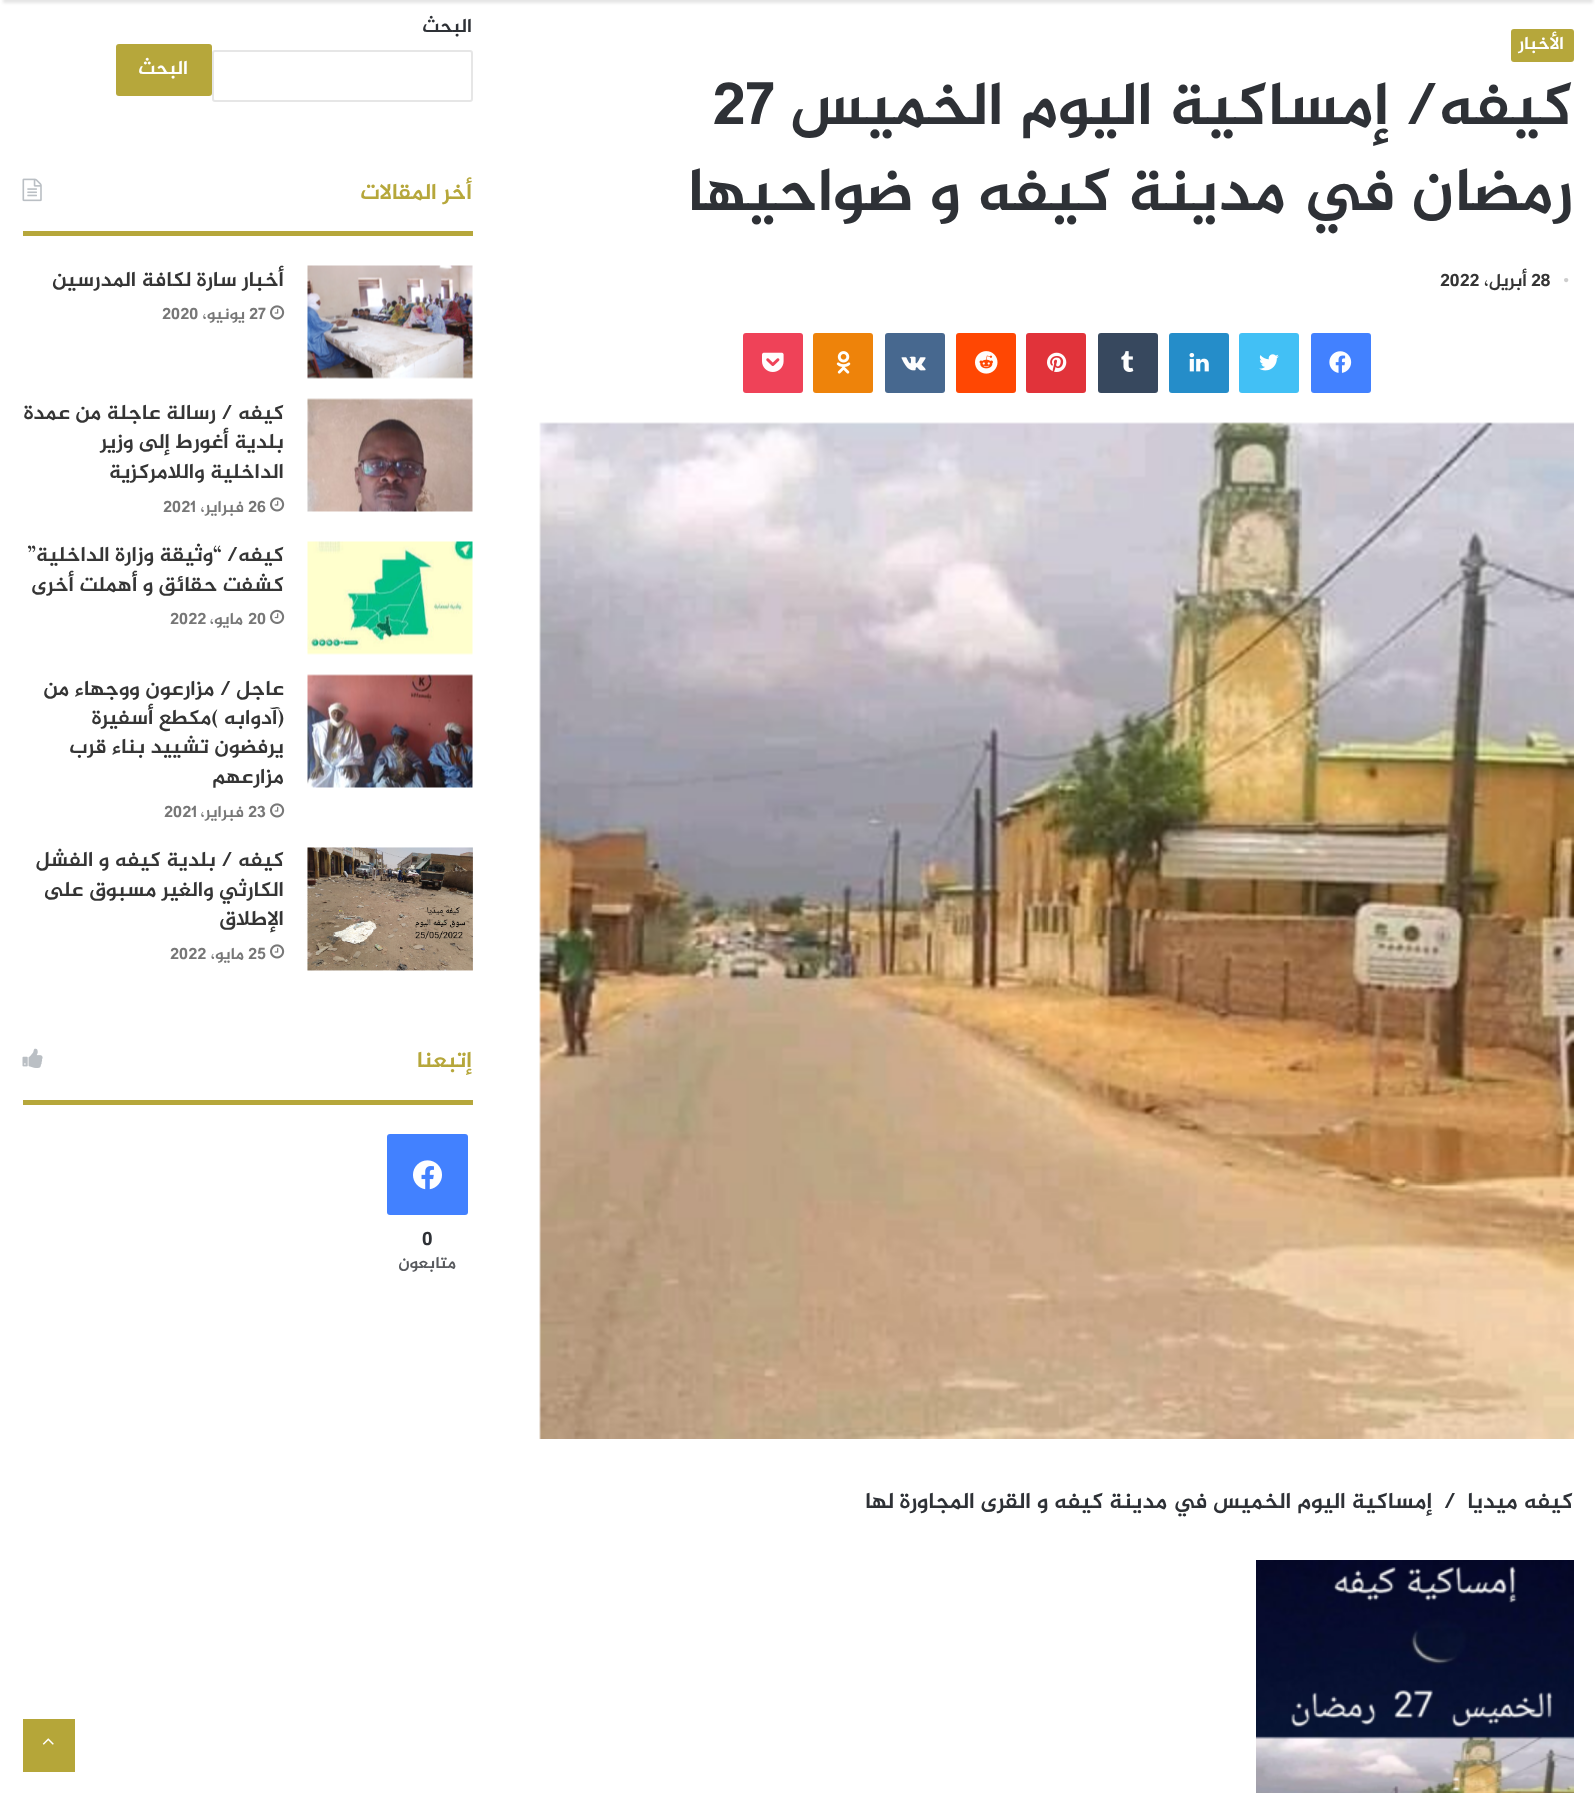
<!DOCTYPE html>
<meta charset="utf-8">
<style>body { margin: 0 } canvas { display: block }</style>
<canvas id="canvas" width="1595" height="1793"></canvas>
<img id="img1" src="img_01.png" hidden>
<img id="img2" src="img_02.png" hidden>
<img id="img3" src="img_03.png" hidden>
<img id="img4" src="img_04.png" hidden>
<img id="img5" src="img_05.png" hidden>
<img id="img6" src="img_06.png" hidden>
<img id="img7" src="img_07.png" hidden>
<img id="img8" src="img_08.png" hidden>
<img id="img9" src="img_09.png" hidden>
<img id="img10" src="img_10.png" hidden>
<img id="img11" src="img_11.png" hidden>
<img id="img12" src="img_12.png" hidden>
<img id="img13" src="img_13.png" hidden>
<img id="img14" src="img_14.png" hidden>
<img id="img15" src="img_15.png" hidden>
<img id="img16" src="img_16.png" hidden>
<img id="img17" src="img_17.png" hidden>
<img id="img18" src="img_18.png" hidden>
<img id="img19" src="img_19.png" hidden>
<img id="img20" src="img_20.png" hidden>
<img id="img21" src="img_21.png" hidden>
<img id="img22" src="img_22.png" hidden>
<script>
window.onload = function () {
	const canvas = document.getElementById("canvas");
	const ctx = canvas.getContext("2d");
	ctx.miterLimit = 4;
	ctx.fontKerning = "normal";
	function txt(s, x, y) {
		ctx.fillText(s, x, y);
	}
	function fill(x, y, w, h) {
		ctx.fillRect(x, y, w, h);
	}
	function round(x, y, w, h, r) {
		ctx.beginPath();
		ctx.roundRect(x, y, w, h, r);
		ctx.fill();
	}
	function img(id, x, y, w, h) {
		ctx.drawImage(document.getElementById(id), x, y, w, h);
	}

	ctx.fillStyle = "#FFFFFF";
	fill(0, 0, 1595, 1793);
	ctx.fillStyle = "rgba(0, 0, 0, 0.1)";
	ctx.filter = "blur(1.5px)";
	ctx.beginPath();
	ctx.rect(3, -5, 1590, 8);
	ctx.fill();
	ctx.filter = "none";
	ctx.fillStyle = "#B6A73B";
	round(1511, 29, 63, 33, 3);
	ctx.fillStyle = "#4281FF";
	round(1311, 333, 60, 60, 3);
	img("img1", 1329, 351, 23, 22);
	ctx.fillStyle = "#42C0F5";
	round(1239, 333, 60, 60, 3);
	img("img2", 1259, 354, 20, 17);
	ctx.fillStyle = "#258DC9";
	round(1169, 333, 60, 60, 3);
	img("img3", 1189, 353, 20, 19);
	ctx.fillStyle = "#37485E";
	round(1098, 333, 60, 60, 3);
	img("img4", 1121, 351, 13, 21);
	ctx.fillStyle = "#E1333A";
	round(1026, 333, 60, 60, 3);
	img("img5", 1047, 352, 20, 20);
	ctx.fillStyle = "#FF4703";
	round(956, 333, 60, 60, 3);
	img("img6", 975, 351, 23, 23);
	ctx.fillStyle = "#47688F";
	round(885, 333, 60, 60, 3);
	img("img7", 901, 356, 25, 15);
	ctx.fillStyle = "#EE830A";
	round(813, 333, 60, 60, 3);
	img("img8", 836, 351, 15, 23);
	ctx.fillStyle = "#EF4258";
	round(743, 333, 60, 60, 3);
	img("img9", 762, 352, 22, 20);
	img("img10", 539, 422, 1035, 1017);
	img("img11", 1256, 1560, 318, 233);
	ctx.beginPath();
	ctx.roundRect(213, 51, 259, 50, 2);
	ctx.strokeStyle = "#E6E6E6";
	ctx.lineWidth = 2;
	ctx.stroke();
	ctx.fillStyle = "#B6A73B";
	round(116, 44, 96, 52, 3);
	fill(23, 231, 450, 5);
	img("img12", 22, 178, 20, 24);
	img("img13", 307, 265, 166, 114);
	img("img14", 270, 305, 15, 15);
	img("img15", 307, 398, 166, 114);
	img("img14", 270, 497, 15, 15);
	img("img16", 307, 541, 166, 114);
	img("img17", 270, 609, 15, 15);
	img("img18", 307, 674, 166, 114);
	img("img14", 270, 803, 15, 15);
	img("img19", 307, 847, 166, 124);
	img("img14", 270, 944, 15, 15);
	fill(23, 1100, 450, 5);
	img("img20", 22, 1048, 21, 20);
	ctx.fillStyle = "#4281FF";
	round(387, 1134, 81, 81, 3);
	img("img21", 413, 1160, 29, 30);
	ctx.fillStyle = "#B5A639";
	fill(23, 1719, 52, 53);
	img("img22", 42, 1738, 12, 7);
	ctx.direction = "rtl";
	ctx.font = "bold 18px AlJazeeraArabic";
	ctx.fillStyle = "#FFFFFF";
	txt("الأخبار", 1564, 49);
	ctx.font = "bold 61.5px AlJazeeraArabic";
	ctx.fillStyle = "#2E3136";
	txt("كيفه/ إمساكية اليوم الخميس", 1573, 124);
	ctx.direction = "ltr";
	txt("27", 712, 124);
	ctx.direction = "rtl";
	txt("رمضان في مدينة كيفه و ضواحيها", 1573, 210);
	ctx.direction = "ltr";
	ctx.font = "18px Liberation Serif";
	ctx.fillStyle = "#CDCDCD";
	txt("•", 1563, 286);
	ctx.font = "bold 18px AlJazeeraArabic";
	ctx.fillStyle = "#353535";
	txt("28", 1531, 286);
	ctx.direction = "rtl";
	txt("أبريل،", 1527, 286);
	ctx.direction = "ltr";
	txt("2022", 1440, 286);
	ctx.direction = "rtl";
	ctx.font = "bold 22.5px AlJazeeraArabic";
	ctx.fillStyle = "#2E3136";
	txt("كيفه ميديا  /  إمساكية اليوم الخميس في مدينة كيفه و القرى المجاورة لها", 1573, 1508);
	ctx.font = "bold 19.5px AlJazeeraArabic";
	txt("البحث", 472, 32);
	ctx.fillStyle = "#FFFFFF";
	txt("البحث", 188, 74);
	ctx.font = "bold 22.5px AlJazeeraArabic";
	ctx.fillStyle = "#B6A73B";
	txt("أخر المقالات", 472, 199);
	ctx.font = "bold 21px AlJazeeraArabic";
	ctx.fillStyle = "#353535";
	txt("أخبار سارة لكافة المدرسين", 284, 286);
	ctx.direction = "ltr";
	ctx.font = "bold 16.5px AlJazeeraArabic";
	ctx.fillStyle = "#777777";
	txt("27", 249, 319);
	ctx.direction = "rtl";
	txt("يونيو،", 245, 319);
	ctx.direction = "ltr";
	txt("2020", 162, 319);
	ctx.direction = "rtl";
	ctx.font = "bold 21px AlJazeeraArabic";
	ctx.fillStyle = "#353535";
	txt("كيفه / رسالة عاجلة من عمدة", 284, 419);
	txt("بلدية أغورط إلى وزير", 284, 448);
	txt("الداخلية واللامركزية", 284, 478);
	ctx.direction = "ltr";
	ctx.font = "bold 16.5px AlJazeeraArabic";
	ctx.fillStyle = "#777777";
	txt("26", 248, 512);
	ctx.direction = "rtl";
	txt("فبراير،", 244, 512);
	ctx.direction = "ltr";
	txt("2021", 163, 512);
	ctx.direction = "rtl";
	ctx.font = "bold 21px AlJazeeraArabic";
	ctx.fillStyle = "#353535";
	txt("كيفه/", 284, 561);
	txt("“وثيقة وزارة الداخلية”", 222, 561);
	txt("كشفت حقائق و أهملت أخرى", 284, 591);
	ctx.direction = "ltr";
	ctx.font = "bold 16.5px AlJazeeraArabic";
	ctx.fillStyle = "#777777";
	txt("20", 248, 624);
	ctx.direction = "rtl";
	txt("مايو،", 243, 624);
	ctx.direction = "ltr";
	txt("2022", 170, 624);
	ctx.direction = "rtl";
	ctx.font = "bold 21px AlJazeeraArabic";
	ctx.fillStyle = "#353535";
	txt("عاجل / مزارعون ووجهاء من", 284, 695);
	txt("(آدوابه )مكطع أسفيرة", 284, 724);
	txt("يرفضون تشييد بناء قرب", 284, 753);
	txt("مزارعهم", 284, 783);
	ctx.direction = "ltr";
	ctx.font = "bold 16.5px AlJazeeraArabic";
	ctx.fillStyle = "#777777";
	txt("23", 248, 817);
	ctx.direction = "rtl";
	txt("فبراير،", 244, 817);
	ctx.direction = "ltr";
	txt("2021", 164, 817);
	ctx.direction = "rtl";
	ctx.font = "bold 21px AlJazeeraArabic";
	ctx.fillStyle = "#353535";
	txt("كيفه /", 284, 866);
	txt("بلدية كيفه و الفشل", 216, 866);
	txt("الكارثي والغير مسبوق على", 284, 896);
	txt("الإطلاق", 284, 925);
	ctx.direction = "ltr";
	ctx.font = "bold 16.5px AlJazeeraArabic";
	ctx.fillStyle = "#777777";
	txt("25", 248, 959);
	ctx.direction = "rtl";
	txt("مايو،", 244, 959);
	ctx.direction = "ltr";
	txt("2022", 170, 959);
	ctx.direction = "rtl";
	ctx.font = "bold 22.5px AlJazeeraArabic";
	ctx.fillStyle = "#B6A73B";
	txt("إتبعنا", 472, 1067);
	ctx.direction = "ltr";
	ctx.font = "bold 19.5px AlJazeeraArabic";
	ctx.fillStyle = "#2E3136";
	txt("0", 422, 1245);
	ctx.direction = "rtl";
	ctx.font = "bold 16.5px AlJazeeraArabic";
	ctx.fillStyle = "#585A5E";
	txt("متابعون", 456, 1268);
};
</script>
